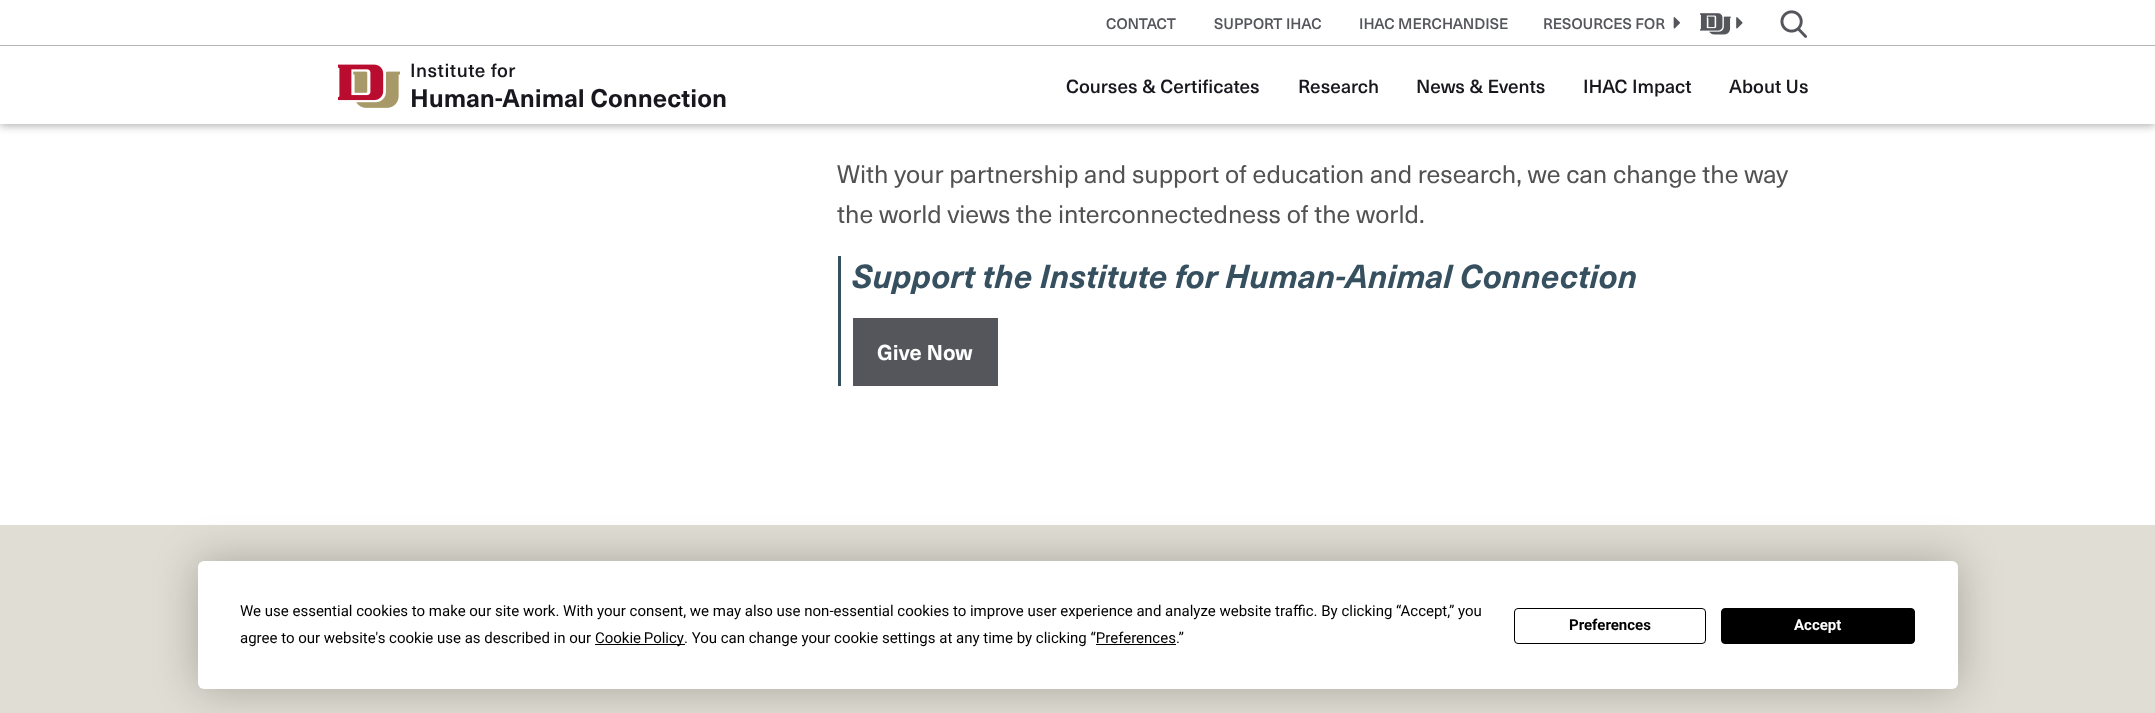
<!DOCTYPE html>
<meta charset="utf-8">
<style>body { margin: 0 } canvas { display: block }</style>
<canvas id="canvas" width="2155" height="713"></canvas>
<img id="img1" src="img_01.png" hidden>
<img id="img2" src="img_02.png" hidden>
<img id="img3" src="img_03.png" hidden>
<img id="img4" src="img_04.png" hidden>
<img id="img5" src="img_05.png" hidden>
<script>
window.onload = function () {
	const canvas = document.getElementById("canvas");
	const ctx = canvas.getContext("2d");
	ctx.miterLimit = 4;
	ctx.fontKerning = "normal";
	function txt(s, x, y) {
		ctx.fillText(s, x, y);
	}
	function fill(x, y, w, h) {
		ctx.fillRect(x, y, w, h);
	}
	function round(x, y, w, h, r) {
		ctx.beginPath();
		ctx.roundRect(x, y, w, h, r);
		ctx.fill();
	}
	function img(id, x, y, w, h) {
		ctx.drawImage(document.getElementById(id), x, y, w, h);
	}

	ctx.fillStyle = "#FFFFFF";
	fill(0, 0, 2155, 713);
	ctx.fillStyle = "rgba(0, 0, 0, 0.3)";
	ctx.filter = "blur(4.5px)";
	ctx.beginPath();
	ctx.rect(0, 3, 2155, 123);
	ctx.fill();
	ctx.filter = "none";
	ctx.fillStyle = "#FFFFFF";
	fill(0, 0, 2155, 45);
	ctx.fillStyle = "#B6B6B6";
	fill(0, 45, 2155, 1);
	img("img1", 1673, 17, 7, 12);
	img("img2", 1700, 13, 31, 22);
	img("img3", 1736, 17, 7, 12);
	img("img4", 1780, 10, 27, 28);
	ctx.fillStyle = "#FFFFFF";
	fill(0, 46, 2155, 78);
	img("img5", 338, 64, 62, 44);
	ctx.fillStyle = "#375060";
	fill(838, 256, 3, 130);
	ctx.fillStyle = "#54565B";
	fill(853, 318, 145, 68);
	ctx.fillStyle = "#E0DDD4";
	fill(0, 525, 2155, 188);
	ctx.fillStyle = "rgba(0, 0, 0, 0.25)";
	ctx.filter = "blur(22px)";
	ctx.beginPath();
	ctx.roundRect(198, 561, 1760, 128, 6);
	ctx.fill();
	ctx.filter = "none";
	ctx.fillStyle = "#FFFFFF";
	round(198, 561, 1760, 128, 6);
	ctx.fillStyle = "#000000";
	fill(595, 644, 90, 1);
	fill(1096, 644, 80, 1);
	ctx.beginPath();
	ctx.roundRect(1514.5, 608.5, 191, 35, 3.5);
	ctx.strokeStyle = "#000000";
	ctx.stroke();
	ctx.beginPath();
	ctx.roundRect(1721.5, 608.5, 193, 35, 3.5);
	ctx.fill();
	ctx.stroke();
	ctx.font = "500 15px 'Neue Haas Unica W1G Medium'";
	ctx.fillStyle = "#54565B";
	txt("CONTACT", 1106, 29);
	txt("SUPPORT IHAC", 1214, 29);
	txt("IHAC MERCHANDISE", 1359, 29);
	txt("RESOURCES FOR", 1543, 29);
	ctx.letterSpacing = "0.5px";
	ctx.font = "500 18.75px 'Neue Haas Unica W1G Medium'";
	ctx.fillStyle = "#18171E";
	txt("Institute for", 410, 77);
	ctx.letterSpacing = "0px";
	ctx.font = "bold 25px 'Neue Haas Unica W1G'";
	txt("Human-Animal Connection", 410, 107);
	ctx.font = "500 18.75px 'Neue Haas Unica W1G Medium'";
	txt("Courses & Certificates", 1066, 93);
	txt("Research", 1298, 93);
	txt("News & Events", 1416, 93);
	txt("IHAC Impact", 1583, 93);
	txt("About Us", 1729, 93);
	ctx.font = "25px 'Neue Haas Unica W1G'";
	ctx.fillStyle = "#525252";
	txt("With your partnership and support of education and research, we can change the way", 837, 183);
	txt("the world views the interconnectedness of the world.", 837, 223);
	ctx.font = "italic bold 32.5px 'Neue Haas Unica W1G'";
	ctx.fillStyle = "#375060";
	txt("Support the Institute for Human-Animal Connection", 852, 288);
	ctx.font = "bold 21.25px 'Neue Haas Unica W1G'";
	ctx.fillStyle = "#FFFFFF";
	txt("Give Now", 877, 360);
	ctx.font = "15px Roboto";
	ctx.fillStyle = "#000000";
	txt("We use essential cookies to make our site work. With your consent, we may also use non-essential cookies to improve user experience and analyze website traffic. By clicking “Accept,” you", 240, 616);
	txt("agree to our website's cookie use as described in our", 240, 643);
	ctx.wordSpacing = "-1px";
	txt("Cookie Policy", 595, 643);
	ctx.wordSpacing = "0px";
	txt(". You can change your cookie settings at any time by clicking “Preferences.”", 684, 643);
	ctx.font = "bold 15px Roboto";
	txt("Preferences", 1569, 630);
	ctx.fillStyle = "#FFFFFF";
	txt("Accept", 1794, 630);
};
</script>
